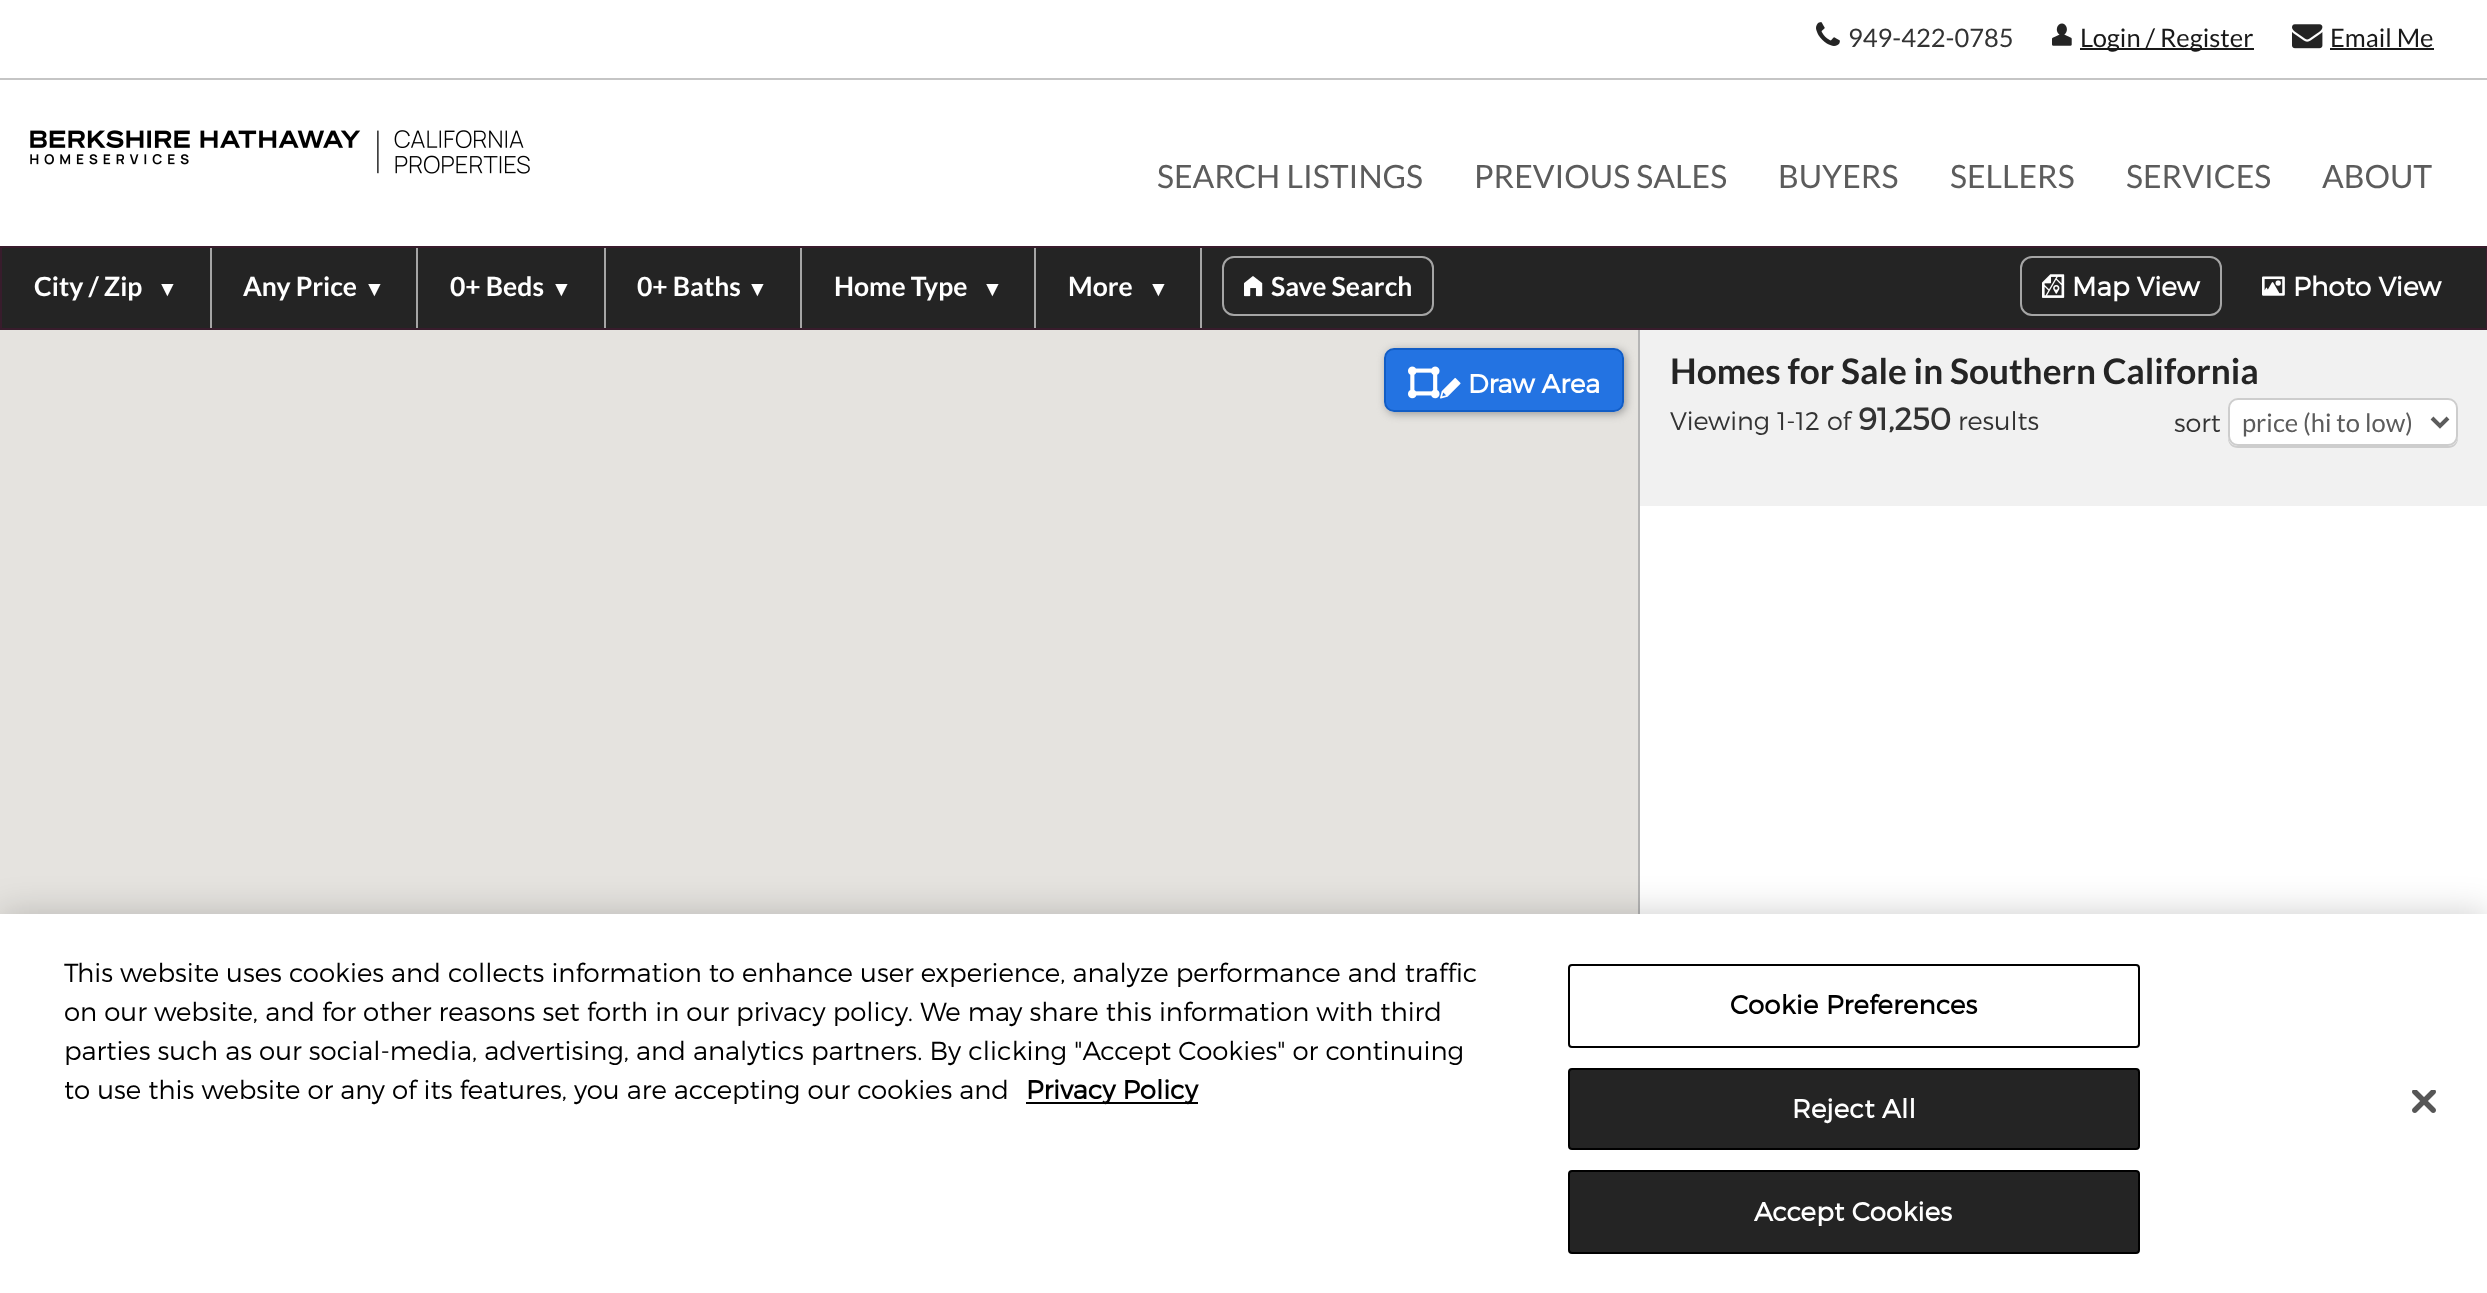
<!DOCTYPE html>
<meta charset="utf-8">
<style>body { margin: 0 } canvas { display: block }</style>
<canvas id="canvas" width="2487" height="1293"></canvas>
<img id="img1" src="img_01.png" hidden>
<img id="img2" src="img_02.png" hidden>
<img id="img3" src="img_03.png" hidden>
<img id="img4" src="img_04.png" hidden>
<img id="img5" src="img_05.png" hidden>
<img id="img6" src="img_06.png" hidden>
<img id="img7" src="img_07.png" hidden>
<img id="img8" src="img_08.png" hidden>
<img id="img9" src="img_09.png" hidden>
<img id="img10" src="img_10.png" hidden>
<script>
window.onload = function () {
	const canvas = document.getElementById("canvas");
	const ctx = canvas.getContext("2d");
	ctx.miterLimit = 4;
	ctx.fontKerning = "normal";
	function txt(s, x, y) {
		ctx.fillText(s, x, y);
	}
	function fill(x, y, w, h) {
		ctx.fillRect(x, y, w, h);
	}
	function img(id, x, y, w, h) {
		ctx.drawImage(document.getElementById(id), x, y, w, h);
	}

	ctx.fillStyle = "#E5E3DF";
	fill(0, 0, 2487, 1293);
	ctx.fillStyle = "#FFFFFF";
	fill(0, 0, 2487, 246);
	ctx.fillStyle = "#C5C5C5";
	fill(0, 78, 2487, 2);
	img("img1", 1816, 22, 24, 24);
	img("img2", 2052, 23, 20, 23);
	ctx.fillStyle = "#1A1A1A";
	fill(2080, 48, 174, 2);
	img("img3", 2292, 24, 31, 25);
	fill(2330, 48, 104, 2);
	img("img4", 30, 130, 500, 44);
	ctx.fillStyle = "#242424";
	ctx.beginPath();
	ctx.rect(1, 247, 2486, 82);
	ctx.fill();
	ctx.strokeStyle = "#381C2C";
	ctx.lineWidth = 2;
	ctx.stroke();
	ctx.fillStyle = "#A5A5A5";
	fill(210, 248, 2, 80);
	fill(416, 248, 2, 80);
	fill(604, 248, 2, 80);
	fill(800, 248, 2, 80);
	fill(1034, 248, 2, 80);
	fill(1200, 248, 2, 80);
	ctx.beginPath();
	ctx.roundRect(1223, 257, 210, 58, 11);
	ctx.strokeStyle = "#A5A5A5";
	ctx.stroke();
	img("img5", 1244, 276, 19, 21);
	ctx.beginPath();
	ctx.roundRect(2021, 257, 200, 58, 11);
	ctx.stroke();
	img("img6", 2042, 274, 23, 24);
	img("img7", 2262, 276, 23, 20);
	ctx.fillStyle = "#B5B5B5";
	fill(1638, 330, 2, 584);
	ctx.save();
	ctx.beginPath();
	ctx.moveTo(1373, 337);
	ctx.lineTo(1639, 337);
	ctx.lineTo(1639, 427);
	ctx.lineTo(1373, 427);
	ctx.closePath();
	ctx.moveTo(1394, 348);
	ctx.lineTo(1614, 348);
	ctx.bezierCurveTo(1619.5, 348, 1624, 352.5, 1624, 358);
	ctx.lineTo(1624, 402);
	ctx.bezierCurveTo(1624, 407.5, 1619.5, 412, 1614, 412);
	ctx.lineTo(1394, 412);
	ctx.bezierCurveTo(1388.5, 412, 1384, 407.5, 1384, 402);
	ctx.lineTo(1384, 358);
	ctx.bezierCurveTo(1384, 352.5, 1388.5, 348, 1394, 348);
	ctx.closePath();
	ctx.clip("evenodd");
	ctx.fillStyle = "#999999";
	ctx.filter = "blur(4px)";
	ctx.beginPath();
	ctx.roundRect(1386, 350, 240, 64, 10);
	ctx.fill();
	ctx.filter = "none";
	ctx.restore();
	ctx.fillStyle = "rgba(1, 95, 227, 0.85)";
	ctx.beginPath();
	ctx.roundRect(1385, 349, 238, 62, 9);
	ctx.fill();
	ctx.strokeStyle = "#125DC5";
	ctx.stroke();
	img("img8", 1408, 366, 32, 33);
	img("img9", 1440, 377, 21, 22);
	ctx.fillStyle = "#F1F1F1";
	fill(1640, 330, 847, 176);
	ctx.fillStyle = "#CDCDCD";
	ctx.beginPath();
	ctx.moveTo(2228, 436);
	ctx.lineTo(2228, 438);
	ctx.bezierCurveTo(2228, 444, 2232, 448, 2238, 448);
	ctx.lineTo(2448, 448);
	ctx.bezierCurveTo(2454, 448, 2458, 444, 2458, 438);
	ctx.lineTo(2458, 436);
	ctx.bezierCurveTo(2458, 442, 2454, 446, 2448, 446);
	ctx.lineTo(2238, 446);
	ctx.bezierCurveTo(2232, 446, 2228, 442, 2228, 436);
	ctx.closePath();
	ctx.fill();
	ctx.fillStyle = "#FFFFFF";
	ctx.beginPath();
	ctx.roundRect(2229, 399, 228, 46, 9);
	ctx.fill();
	ctx.strokeStyle = "#CDCDCD";
	ctx.stroke();
	ctx.beginPath();
	ctx.moveTo(2432, 418);
	ctx.lineTo(2440, 426);
	ctx.lineTo(2448, 418);
	ctx.strokeStyle = "#5C5C5C";
	ctx.lineWidth = 4;
	ctx.stroke();
	fill(1640, 506, 847, 408);
	ctx.fillStyle = "rgba(0, 0, 0, 0.2)";
	ctx.filter = "blur(18px)";
	ctx.beginPath();
	ctx.rect(0, 914, 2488, 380);
	ctx.fill();
	ctx.filter = "none";
	ctx.fillStyle = "#FFFFFF";
	fill(0, 914, 2487, 379);
	ctx.fillStyle = "#000000";
	fill(1026, 1102, 172, 2);
	ctx.beginPath();
	ctx.roundRect(1569, 965, 570, 82, 3);
	ctx.strokeStyle = "#000000";
	ctx.lineWidth = 2;
	ctx.stroke();
	ctx.fillStyle = "#242424";
	ctx.beginPath();
	ctx.roundRect(1569, 1069, 570, 80, 3);
	ctx.fill();
	ctx.stroke();
	ctx.beginPath();
	ctx.roundRect(1569, 1171, 570, 82, 3);
	ctx.fill();
	ctx.stroke();
	img("img10", 2412, 1090, 24, 23);
	ctx.font = "25.5px Lato";
	ctx.fillStyle = "#333333";
	txt("949-422-0785", 1848, 47);
	ctx.fillStyle = "#191919";
	txt("Login / Register", 2080, 47);
	txt("Email Me", 2330, 47);
	ctx.font = "32px Lato";
	ctx.fillStyle = "#5C5C5C";
	txt("SEARCH LISTINGS", 1157, 188);
	txt("PREVIOUS SALES", 1474, 188);
	txt("BUYERS", 1778, 188);
	txt("SELLERS", 1950, 188);
	txt("SERVICES", 2126, 188);
	txt("ABOUT", 2322, 188);
	ctx.font = "bold 26.5px Lato";
	ctx.fillStyle = "#FFFFFF";
	txt("City / Zip", 34, 296);
	ctx.font = "bold 21px Liberation Serif";
	txt("▼", 157, 296);
	ctx.font = "bold 26.5px Lato";
	txt("Any Price", 243, 296);
	ctx.font = "bold 21px Liberation Serif";
	txt("▼", 364, 296);
	ctx.font = "bold 26.5px Lato";
	txt("0+ Beds", 450, 296);
	ctx.font = "bold 21px Liberation Serif";
	txt("▼", 551, 296);
	ctx.font = "bold 26.5px Lato";
	txt("0+ Baths", 637, 296);
	ctx.font = "bold 21px Liberation Serif";
	txt("▼", 747, 296);
	ctx.font = "bold 26.5px Lato";
	txt("Home Type", 834, 296);
	ctx.font = "bold 21px Liberation Serif";
	txt("▼", 982, 296);
	ctx.font = "bold 26.5px Lato";
	txt("More", 1068, 296);
	ctx.font = "bold 21px Liberation Serif";
	txt("▼", 1148, 296);
	ctx.font = "bold 26.5px Lato";
	txt("Save Search", 1271, 296);
	ctx.font = "bold 26.5px Montserrat";
	txt("Map View", 2072, 296);
	txt("Photo View", 2293, 296);
	ctx.font = "bold 26px Montserrat";
	txt("Draw Area", 1468, 393);
	ctx.font = "bold 35.25px Lato";
	ctx.fillStyle = "#242424";
	txt("Homes for Sale in Southern California", 1670, 384);
	ctx.font = "300 25.5px Montserrat";
	ctx.fillStyle = "#333333";
	txt("Viewing 1-12 of", 1670, 430);
	ctx.font = "bold 31px Montserrat";
	txt("91,250", 1858, 430);
	ctx.font = "300 25.5px Montserrat";
	txt("results", 1958, 430);
	txt("sort", 2174, 432);
	ctx.font = "25.5px Lato";
	ctx.fillStyle = "#5C5C5C";
	txt("price (hi to low)", 2242, 432);
	ctx.font = "300 26.02px Montserrat";
	ctx.fillStyle = "#000000";
	txt("This website uses cookies and collects information to enhance user experience, analyze performance and traffic", 64, 982);
	txt("on our website, and for other reasons set forth in our privacy policy. We may share this information with third", 64, 1021);
	txt("parties such as our social-media, advertising, and analytics partners. By clicking \"Accept Cookies\" or continuing", 64, 1060);
	txt("to use this website or any of its features, you are accepting our cookies and", 64, 1099);
	ctx.font = "bold 26.02px Montserrat";
	txt("Privacy Policy", 1026, 1099);
	ctx.letterSpacing = "0.25px";
	txt("Cookie Preferences", 1730, 1014);
	ctx.fillStyle = "#FFFFFF";
	txt("Reject All", 1792, 1118);
	txt("Accept Cookies", 1754, 1221);
};
</script>
